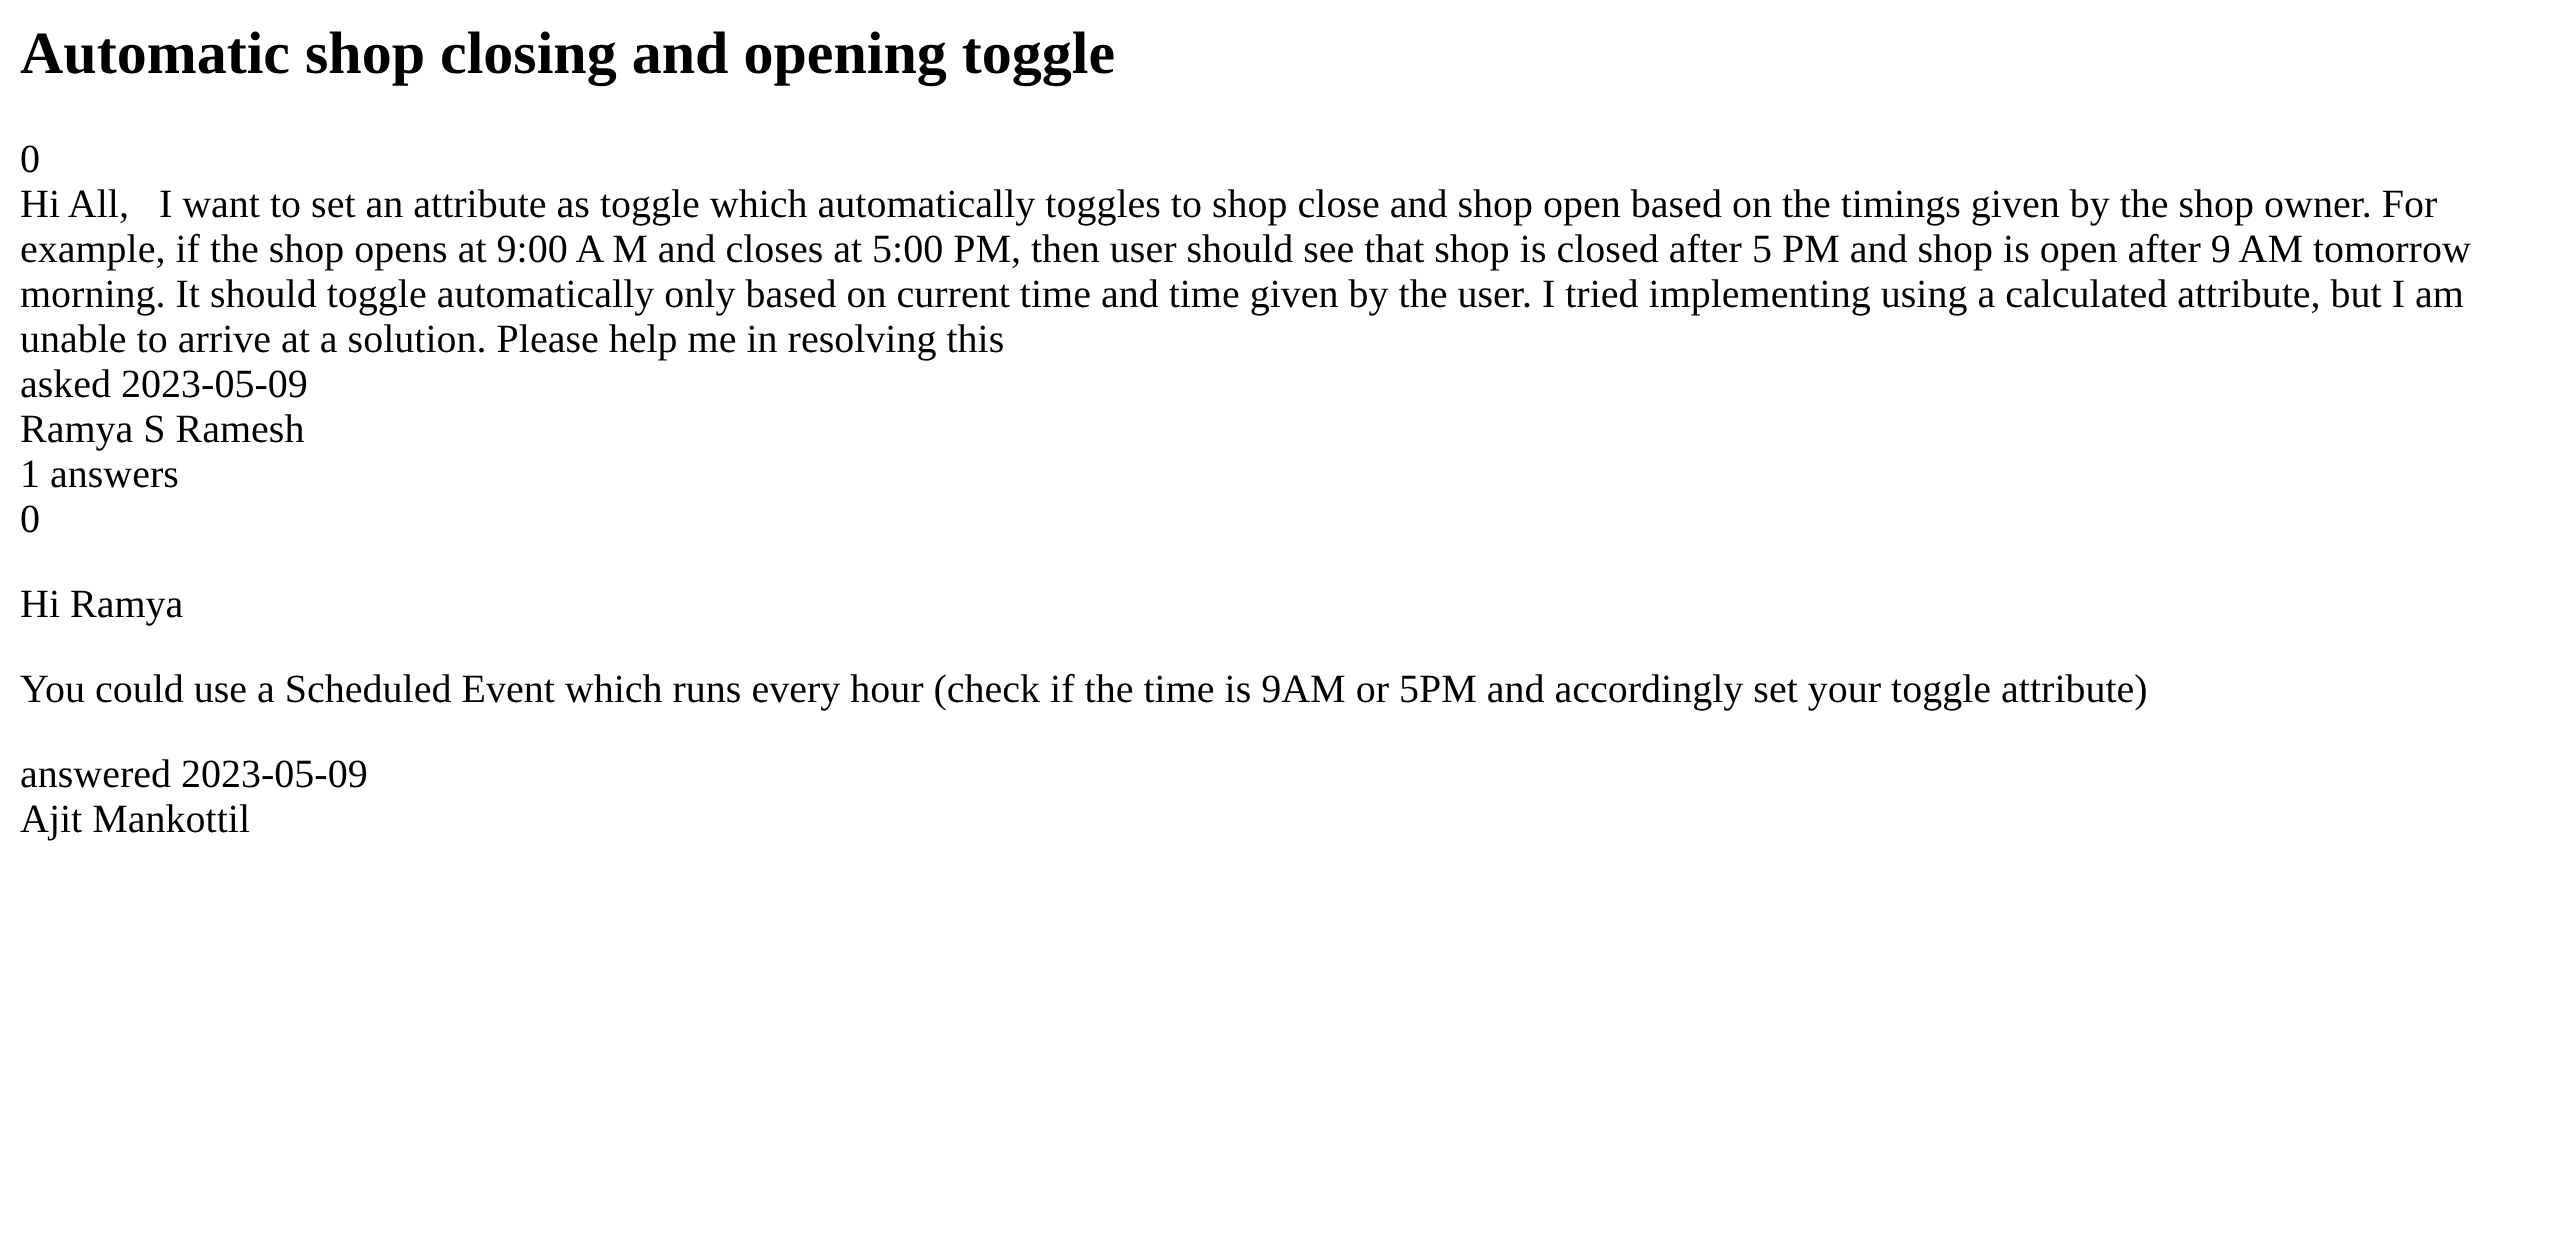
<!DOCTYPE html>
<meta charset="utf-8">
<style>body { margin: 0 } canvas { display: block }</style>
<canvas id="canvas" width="2569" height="1245"></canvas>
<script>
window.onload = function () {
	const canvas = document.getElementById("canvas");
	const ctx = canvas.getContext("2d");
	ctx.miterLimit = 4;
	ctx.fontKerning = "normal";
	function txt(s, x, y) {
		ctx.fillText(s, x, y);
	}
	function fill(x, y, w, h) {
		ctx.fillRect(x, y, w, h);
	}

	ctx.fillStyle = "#FFFFFF";
	fill(0, 0, 2569, 1245);
	ctx.font = "bold 60px Liberation Serif";
	ctx.fillStyle = "#000000";
	txt("Automatic shop closing and opening toggle", 20, 73);
	ctx.font = "40px Liberation Serif";
	txt("0", 20, 172);
	txt("Hi All,   I want to set an attribute as toggle which automatically toggles to shop close and shop open based on the timings given by the shop owner. For", 20, 217);
	txt("example, if the shop opens at 9:00 A M and closes at 5:00 PM, then user should see that shop is closed after 5 PM and shop is open after 9 AM tomorrow", 20, 262);
	txt("morning. It should toggle automatically only based on current time and time given by the user. I tried implementing using a calculated attribute, but I am", 20, 307);
	txt("unable to arrive at a solution. Please help me in resolving this", 20, 352);
	txt("asked 2023-05-09", 20, 397);
	txt("Ramya S Ramesh", 20, 442);
	txt("1 answers", 20, 487);
	txt("0", 20, 532);
	txt("Hi Ramya", 20, 617);
	txt("You could use a Scheduled Event which runs every hour (check if the time is 9AM or 5PM and accordingly set your toggle attribute)", 20, 702);
	txt("answered 2023-05-09", 20, 787);
	txt("Ajit Mankottil", 20, 832);
};
</script>
